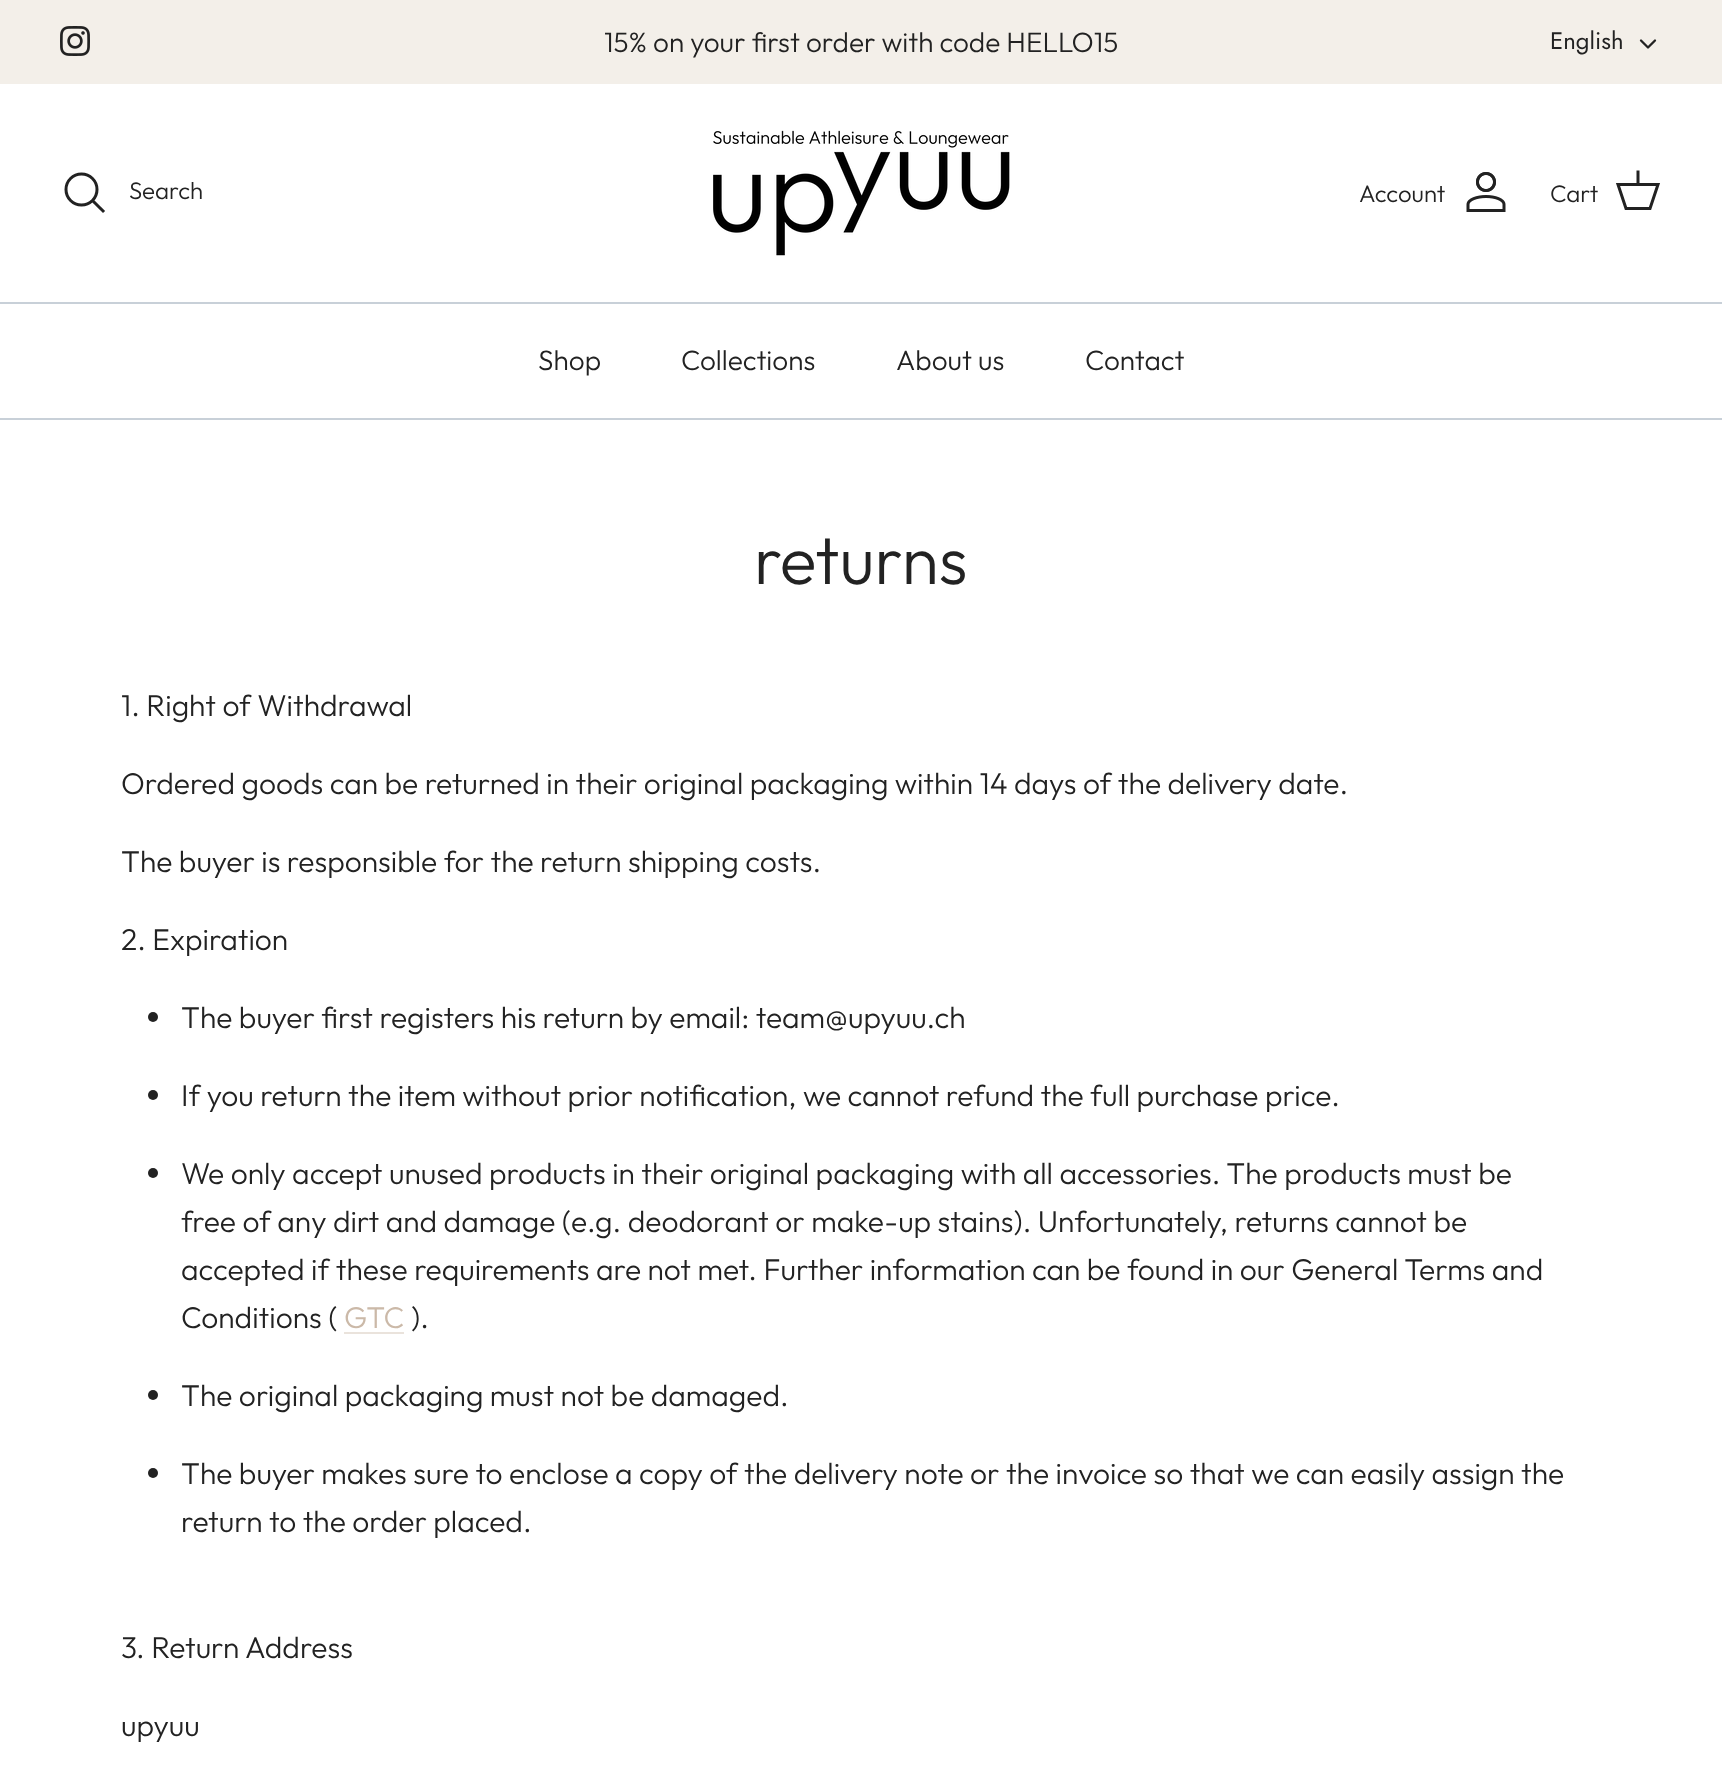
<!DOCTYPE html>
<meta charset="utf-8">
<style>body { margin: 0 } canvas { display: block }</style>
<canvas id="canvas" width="1722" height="1787"></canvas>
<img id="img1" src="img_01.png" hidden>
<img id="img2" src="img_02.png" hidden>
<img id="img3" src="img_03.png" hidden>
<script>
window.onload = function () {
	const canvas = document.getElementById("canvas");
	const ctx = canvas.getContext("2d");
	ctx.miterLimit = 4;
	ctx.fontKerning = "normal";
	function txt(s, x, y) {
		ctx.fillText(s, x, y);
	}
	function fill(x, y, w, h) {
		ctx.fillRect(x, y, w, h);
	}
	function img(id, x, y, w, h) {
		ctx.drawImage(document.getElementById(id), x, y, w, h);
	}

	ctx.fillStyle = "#FFFFFF";
	fill(0, 0, 1722, 1787);
	ctx.fillStyle = "#F3EFE9";
	fill(0, 0, 1722, 84);
	img("img1", 60, 26, 30, 30);
	ctx.beginPath();
	ctx.moveTo(1641, 40.5);
	ctx.lineTo(1648, 47.5);
	ctx.lineTo(1655, 40.5);
	ctx.strokeStyle = "#222222";
	ctx.lineWidth = 2.3;
	ctx.lineCap = "round";
	ctx.lineJoin = "round";
	ctx.stroke();
	ctx.fillStyle = "#C8D0D8";
	fill(0, 302, 1722, 2);
	ctx.beginPath();
	ctx.arc(81.5, 189.5, 15.5, 0, Math.PI * 2);
	ctx.lineWidth = 3;
	ctx.stroke();
	ctx.beginPath();
	ctx.moveTo(94, 202);
	ctx.lineTo(103, 211);
	ctx.lineCap = "square";
	ctx.lineJoin = "miter";
	ctx.stroke();
	img("img2", 713, 130, 297, 126);
	img("img3", 1466, 172, 40, 40);
	ctx.beginPath();
	ctx.moveTo(1618, 184.5);
	ctx.lineTo(1658, 184.5);
	ctx.lineTo(1650, 208.5);
	ctx.lineTo(1626, 208.5);
	ctx.closePath();
	ctx.lineCap = "butt";
	ctx.stroke();
	ctx.beginPath();
	ctx.moveTo(1638, 184);
	ctx.lineTo(1638, 172);
	ctx.lineCap = "square";
	ctx.stroke();
	fill(0, 418, 1722, 2);
	ctx.fillStyle = "#222222";
	ctx.beginPath();
	ctx.arc(153, 1017, 5, 0, Math.PI * 2);
	ctx.fill();
	ctx.beginPath();
	ctx.arc(153, 1095, 5, 0, Math.PI * 2);
	ctx.fill();
	ctx.beginPath();
	ctx.arc(153, 1173, 5, 0, Math.PI * 2);
	ctx.fill();
	ctx.fillStyle = "#EAE3DC";
	fill(344, 1332, 60, 2);
	ctx.fillStyle = "#222222";
	ctx.beginPath();
	ctx.arc(153, 1395, 5, 0, Math.PI * 2);
	ctx.fill();
	ctx.beginPath();
	ctx.arc(153, 1473, 5, 0, Math.PI * 2);
	ctx.fill();
	ctx.font = "100 28px Outfit";
	txt("15% on your first order with code HELLO15", 604, 52);
	ctx.font = "24px Jost";
	txt("English", 1550, 49);
	ctx.font = "100 24px Outfit";
	txt("Search", 129, 199);
	txt("Account", 1359, 202);
	txt("Cart", 1550, 202);
	ctx.font = "100 28px Outfit";
	txt("Shop", 538, 370);
	txt("Collections", 681, 370);
	txt("About us", 896, 370);
	txt("Contact", 1085, 370);
	ctx.font = "100 68px Outfit";
	txt("returns", 754, 584);
	ctx.font = "100 30px Outfit";
	txt("1. Right of Withdrawal", 121, 716);
	txt("Ordered goods can be returned in their original packaging within 14 days of the delivery date.", 121, 794);
	txt("The buyer is responsible for the return shipping costs.", 121, 872);
	txt("2. Expiration", 121, 950);
	txt("The buyer first registers his return by email: team@upyuu.ch", 181, 1028);
	txt("If you return the item without prior notification, we cannot refund the full purchase price.", 181, 1106);
	txt("We only accept unused products in their original packaging with all accessories. The products must be", 181, 1184);
	txt("free of any dirt and damage (e.g. deodorant or make-up stains). Unfortunately, returns cannot be", 181, 1232);
	txt("accepted if these requirements are not met. Further information can be found in our General Terms and", 181, 1280);
	txt("Conditions (", 181, 1328);
	ctx.fillStyle = "#CBB9A8";
	txt("GTC", 344, 1328);
	ctx.fillStyle = "#222222";
	txt(").", 411, 1328);
	txt("The original packaging must not be damaged.", 181, 1406);
	txt("The buyer makes sure to enclose a copy of the delivery note or the invoice so that we can easily assign the", 181, 1484);
	txt("return to the order placed.", 181, 1532);
	txt("3. Return Address", 121, 1658);
	txt("upyuu", 121, 1736);
};
</script>
